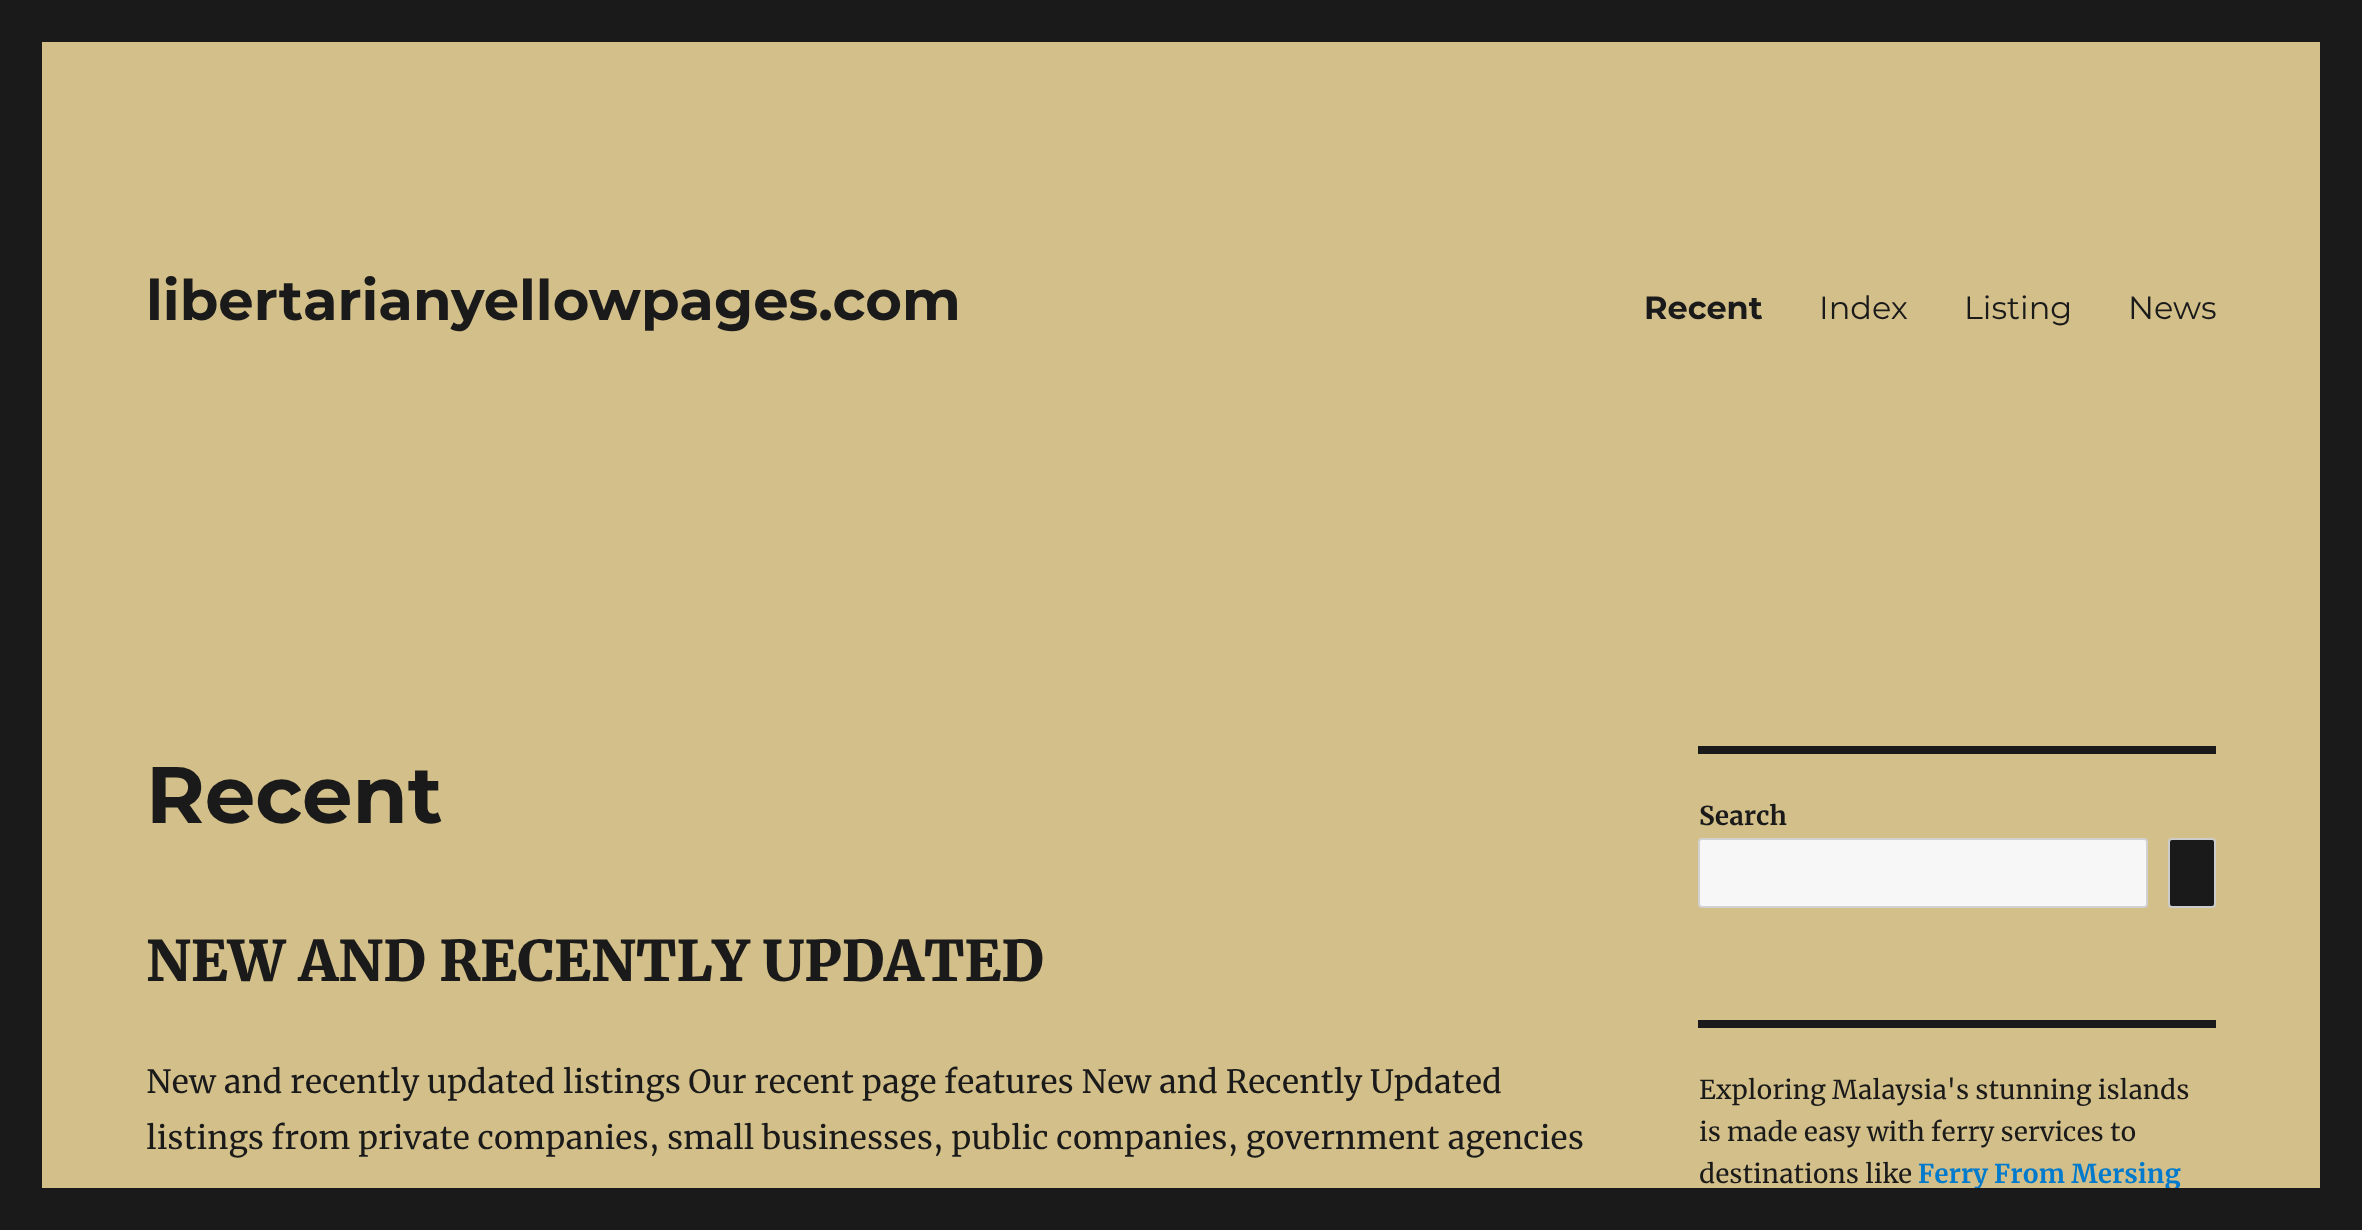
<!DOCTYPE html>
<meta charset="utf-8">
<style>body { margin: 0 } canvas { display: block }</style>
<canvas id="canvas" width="2362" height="1230"></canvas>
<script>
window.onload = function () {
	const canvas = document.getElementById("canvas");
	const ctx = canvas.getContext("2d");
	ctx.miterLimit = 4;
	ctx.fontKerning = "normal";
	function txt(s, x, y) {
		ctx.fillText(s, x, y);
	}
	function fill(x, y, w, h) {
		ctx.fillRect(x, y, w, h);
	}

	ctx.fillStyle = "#1A1A1A";
	fill(0, 0, 2362, 1230);
	ctx.fillStyle = "#D3BF89";
	fill(42, 42, 2278, 1146);
	ctx.fillStyle = "#1A1A1A";
	fill(1698, 746, 518, 8);
	ctx.fillStyle = "#F7F7F7";
	ctx.beginPath();
	ctx.roundRect(1699, 839, 448, 68, 3);
	ctx.fill();
	ctx.strokeStyle = "#D1D1D1";
	ctx.lineWidth = 2;
	ctx.stroke();
	ctx.fillStyle = "#1A1A1A";
	ctx.beginPath();
	ctx.roundRect(2169, 839, 46, 68, 3);
	ctx.fill();
	ctx.strokeStyle = "#CCCCCC";
	ctx.stroke();
	fill(1698, 1020, 518, 8);
	ctx.font = "100 56px Montserrat";
	txt("libertarianyellowpages.com", 146, 320);
	ctx.font = "100 32px Montserrat";
	txt("Recent", 1644, 319);
	ctx.font = "100 32px 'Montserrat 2'";
	txt("Index", 1819, 319);
	txt("Listing", 1964, 319);
	txt("News", 2128, 319);
	ctx.font = "100 80px Montserrat";
	txt("Recent", 146, 823);
	ctx.font = "900 56px Merriweather";
	txt("NEW AND RECENTLY UPDATED", 146, 981);
	ctx.font = "32px Merriweather";
	txt("New and recently updated listings Our recent page features New and Recently Updated", 146, 1093);
	txt("listings from private companies, small businesses, public companies, government agencies", 146, 1149);
	ctx.font = "bold 26px Merriweather";
	txt("Search", 1699, 825);
	ctx.font = "26px Merriweather";
	txt("Exploring Malaysia's stunning islands", 1699, 1099);
	txt("is made easy with ferry services to", 1699, 1141);
	txt("destinations like", 1699, 1183);
	ctx.font = "bold 26px Merriweather";
	ctx.fillStyle = "#007ACC";
	txt("Ferry From Mersing", 1918, 1183);
	ctx.fillStyle = "#1A1A1A";
	fill(1974, 1188, 205, 2);
};
</script>
